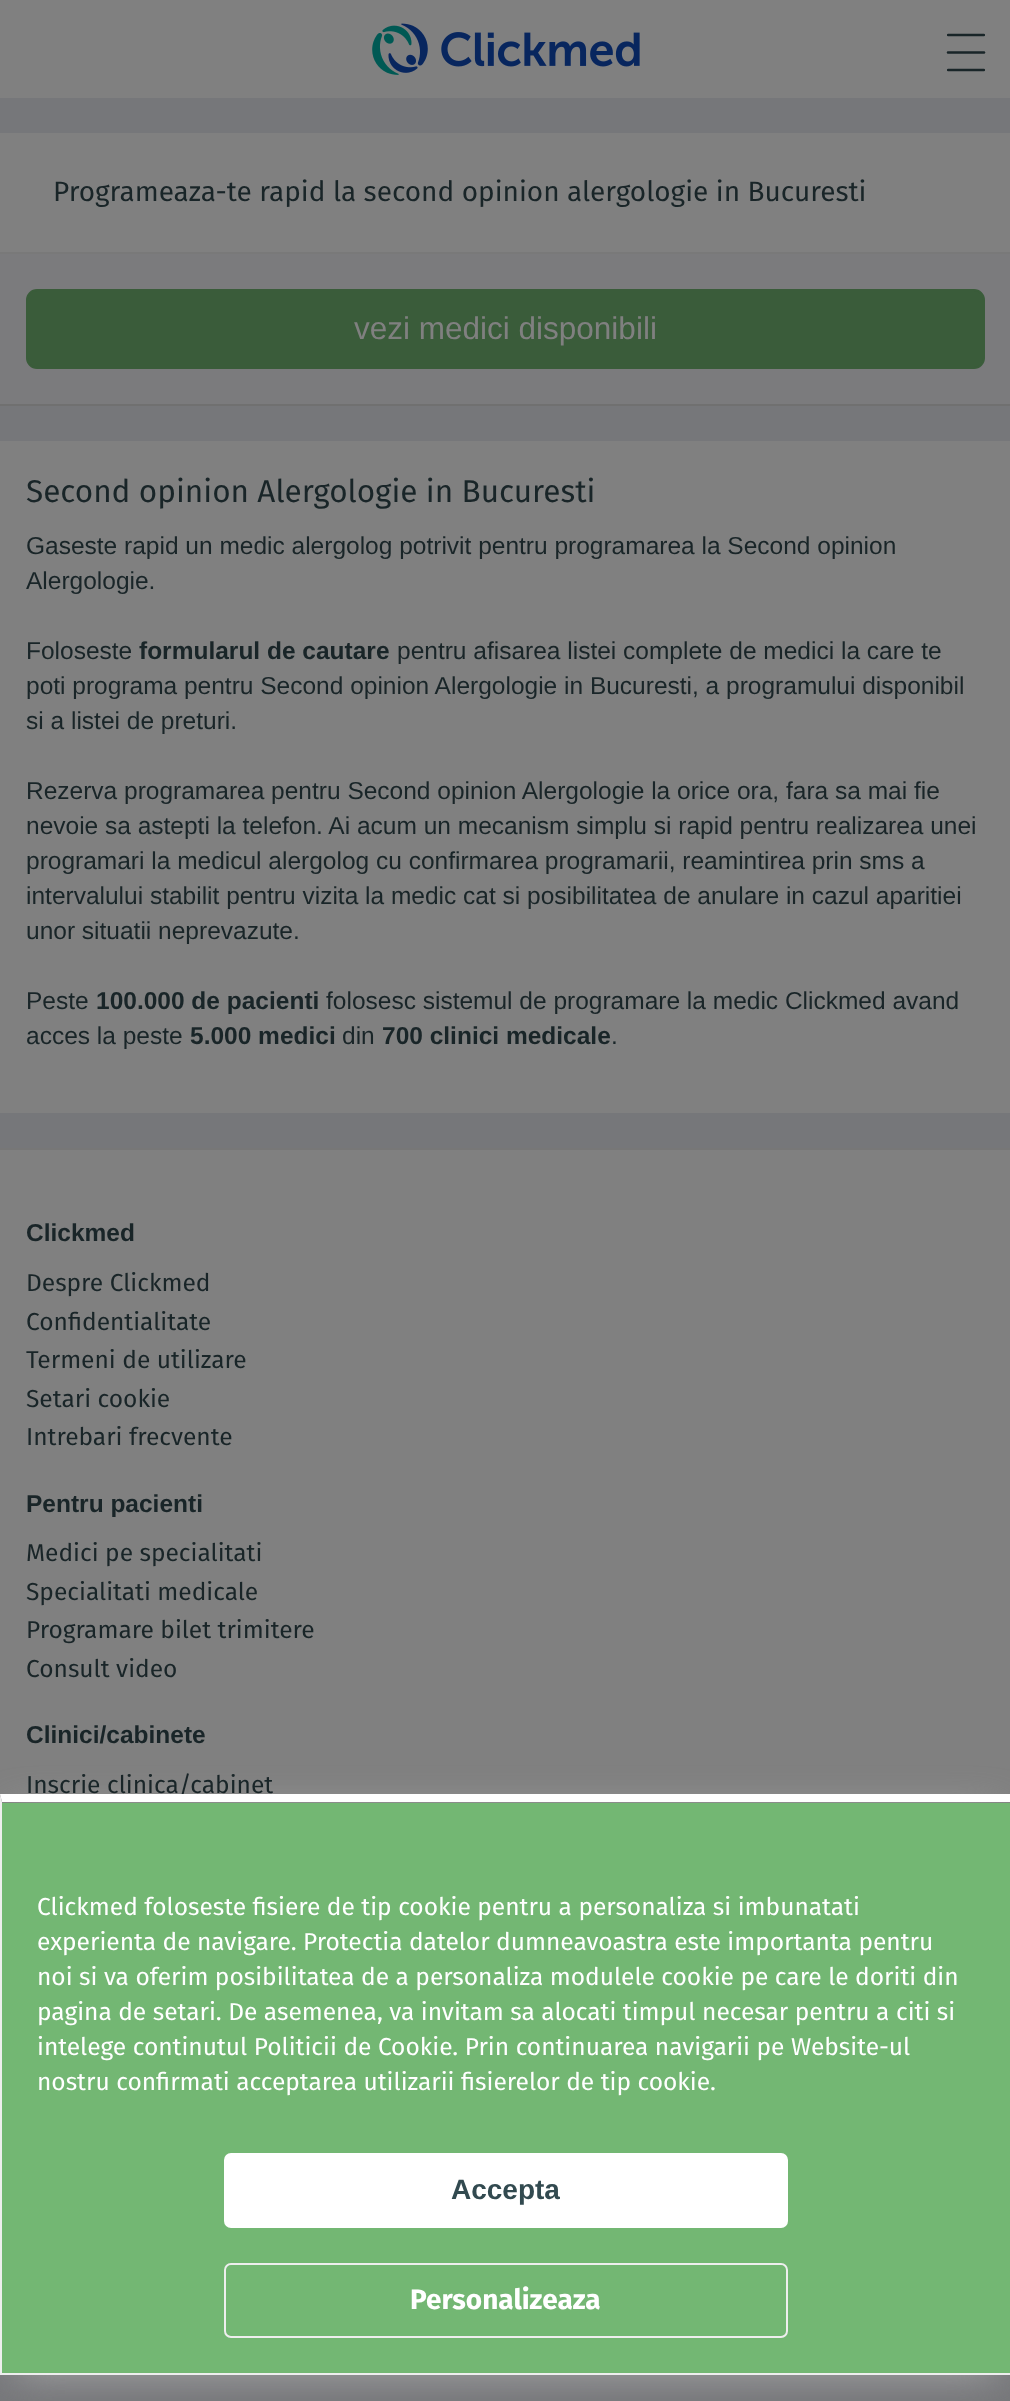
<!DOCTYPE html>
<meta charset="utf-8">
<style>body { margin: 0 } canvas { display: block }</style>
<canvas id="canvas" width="1010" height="2401"></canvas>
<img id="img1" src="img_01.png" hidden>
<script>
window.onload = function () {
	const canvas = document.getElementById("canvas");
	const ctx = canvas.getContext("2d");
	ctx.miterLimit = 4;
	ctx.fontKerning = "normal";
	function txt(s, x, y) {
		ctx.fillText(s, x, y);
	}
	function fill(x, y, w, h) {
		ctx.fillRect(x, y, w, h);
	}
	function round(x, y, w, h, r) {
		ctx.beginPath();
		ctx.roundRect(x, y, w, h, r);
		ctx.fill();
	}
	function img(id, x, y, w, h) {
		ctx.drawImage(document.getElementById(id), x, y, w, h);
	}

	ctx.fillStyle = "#76777A";
	fill(0, 0, 1010, 2401);
	ctx.fillStyle = "#808080";
	fill(0, 0, 1010, 98);
	img("img1", 372, 23, 268, 52);
	ctx.save();
	ctx.beginPath();
	ctx.rect(947, 33, 38, 39);
	ctx.clip();
	ctx.beginPath();
	ctx.moveTo(948, 35);
	ctx.lineTo(984, 35);
	ctx.strokeStyle = "#192528";
	ctx.lineWidth = 2.5;
	ctx.lineCap = "round";
	ctx.lineJoin = "round";
	ctx.stroke();
	ctx.restore();
	ctx.beginPath();
	ctx.moveTo(948, 52.5);
	ctx.lineTo(984, 52.5);
	ctx.strokeStyle = "#192528";
	ctx.lineWidth = 2.5;
	ctx.lineCap = "round";
	ctx.lineJoin = "round";
	ctx.stroke();
	ctx.save();
	ctx.beginPath();
	ctx.rect(947, 33, 38, 39);
	ctx.clip();
	ctx.beginPath();
	ctx.moveTo(948, 70);
	ctx.lineTo(984, 70);
	ctx.stroke();
	ctx.restore();
	fill(0, 133, 1010, 119);
	ctx.fillStyle = "#797979";
	fill(0, 252, 1010, 2);
	ctx.fillStyle = "#7B7B7D";
	fill(0, 254, 1010, 150);
	ctx.fillStyle = "#707070";
	fill(0, 404, 1010, 2);
	ctx.fillStyle = "#3A5C3A";
	ctx.beginPath();
	ctx.roundRect(27, 290, 957, 78, 10);
	ctx.fill();
	ctx.strokeStyle = "#3A5C3A";
	ctx.lineWidth = 2;
	ctx.lineJoin = "miter";
	ctx.stroke();
	ctx.fillStyle = "#808080";
	fill(0, 441, 1010, 672);
	fill(0, 1150, 1010, 653);
	ctx.fillStyle = "#777777";
	fill(0, 1148, 1010, 2);
	ctx.fillStyle = "#B2B2B2";
	ctx.filter = "blur(22px)";
	ctx.beginPath();
	ctx.rect(14, 1817, 984, 553);
	ctx.fill();
	ctx.filter = "none";
	ctx.fillStyle = "#73B773";
	fill(2, 1803, 1008, 570);
	ctx.fillStyle = "#EEEEEE";
	fill(0, 2373, 1010, 2);
	ctx.fillStyle = "#FFFFFF";
	round(224, 2153, 564, 75, 7);
	ctx.beginPath();
	ctx.roundRect(225, 2264, 562, 73, 6);
	ctx.strokeStyle = "#EEEEEE";
	ctx.stroke();
	ctx.font = "28px Fira Sans";
	ctx.fillStyle = "#192528";
	txt("Programeaza-te rapid la second opinion alergologie in Bucuresti", 53, 201);
	ctx.font = "31.5px Liberation Sans";
	ctx.fillStyle = "#808080";
	txt("vezi medici disponibili", 354, 339);
	ctx.font = "31.5px Fira Sans";
	ctx.fillStyle = "#192528";
	txt("Second opinion Alergologie in Bucuresti", 26, 502);
	ctx.font = "24.5px Liberation Sans";
	txt("Gaseste rapid un medic alergolog potrivit pentru programarea la Second opinion", 26, 554);
	txt("Alergologie.", 26, 589);
	txt("Foloseste", 26, 659);
	ctx.font = "bold 24.5px Liberation Sans";
	txt("formularul de cautare", 139, 659);
	ctx.font = "24.5px Liberation Sans";
	txt("pentru afisarea listei complete de medici la care te", 397, 659);
	txt("poti programa pentru Second opinion Alergologie in Bucuresti, a programului disponibil", 26, 694);
	txt("si a listei de preturi.", 26, 729);
	txt("Rezerva programarea pentru Second opinion Alergologie la orice ora, fara sa mai fie", 26, 799);
	txt("nevoie sa astepti la telefon. Ai acum un mecanism simplu si rapid pentru realizarea unei", 26, 834);
	txt("programari la medicul alergolog cu confirmarea programarii, reamintirea prin sms a", 26, 869);
	txt("intervalului stabilit pentru vizita la medic cat si posibilitatea de anulare in cazul aparitiei", 26, 904);
	txt("unor situatii neprevazute.", 26, 939);
	txt("Peste", 26, 1009);
	ctx.font = "bold 24.5px Liberation Sans";
	txt("100.000 de pacienti", 96, 1009);
	ctx.font = "24.5px Liberation Sans";
	txt("folosesc sistemul de programare la medic Clickmed avand", 326, 1009);
	txt("acces la peste", 26, 1044);
	ctx.font = "bold 24.5px Liberation Sans";
	txt("5.000 medici", 190, 1044);
	ctx.font = "24.5px Liberation Sans";
	txt("din", 342, 1044);
	ctx.font = "bold 24.5px Liberation Sans";
	txt("700 clinici medicale", 382, 1044);
	ctx.font = "24.5px Liberation Sans";
	txt(".", 611, 1044);
	ctx.font = "bold 24.5px Liberation Sans";
	txt("Clickmed", 26, 1241);
	ctx.font = "24.5px Fira Sans";
	txt("Despre Clickmed", 26, 1291);
	txt("Confidentialitate", 26, 1330);
	txt("Termeni de utilizare", 26, 1368);
	txt("Setari cookie", 26, 1407);
	txt("Intrebari frecvente", 26, 1445);
	ctx.font = "bold 24.5px Liberation Sans";
	txt("Pentru pacienti", 26, 1512);
	ctx.font = "24.5px Fira Sans";
	txt("Medici pe specialitati", 26, 1561);
	txt("Specialitati medicale", 26, 1600);
	txt("Programare bilet trimitere", 26, 1638);
	txt("Consult video", 26, 1677);
	ctx.font = "bold 24.5px Liberation Sans";
	txt("Clinici/cabinete", 26, 1743);
	ctx.font = "24.5px Fira Sans";
	txt("Inscrie clinica/cabinet", 26, 1793);
	ctx.fillStyle = "#FFFFFF";
	ctx.beginPath();
	ctx.moveTo(0, 1794);
	ctx.lineTo(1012, 1794);
	ctx.lineTo(1010, 1802);
	ctx.lineTo(2, 1802);
	ctx.closePath();
	ctx.fill();
	ctx.fillStyle = "#EEEEEE";
	ctx.beginPath();
	ctx.moveTo(0, 2375);
	ctx.lineTo(0, 1794);
	ctx.lineTo(2, 1802);
	ctx.lineTo(2, 2373);
	ctx.closePath();
	ctx.fill();
	ctx.fillStyle = "#FFFFFF";
	txt("Clickmed foloseste fisiere de tip cookie pentru a personaliza si imbunatati", 37, 1915);
	txt("experienta de navigare. Protectia datelor dumneavoastra este importanta pentru", 37, 1950);
	txt("noi si va oferim posibilitatea de a personaliza modulele cookie pe care le doriti din", 37, 1985);
	txt("pagina de setari. De asemenea, va invitam sa alocati timpul necesar pentru a citi si", 37, 2020);
	txt("intelege continutul Politicii de Cookie. Prin continuarea navigarii pe Website-ul", 37, 2055);
	txt("nostru confirmati acceptarea utilizarii fisierelor de tip cookie.", 37, 2090);
	ctx.font = "bold 28px Liberation Sans";
	ctx.fillStyle = "#324A50";
	txt("Accepta", 451, 2199);
	ctx.font = "bold 28px Fira Sans";
	ctx.fillStyle = "#FFFFFF";
	txt("Personalizeaza", 410, 2309);
};
</script>
